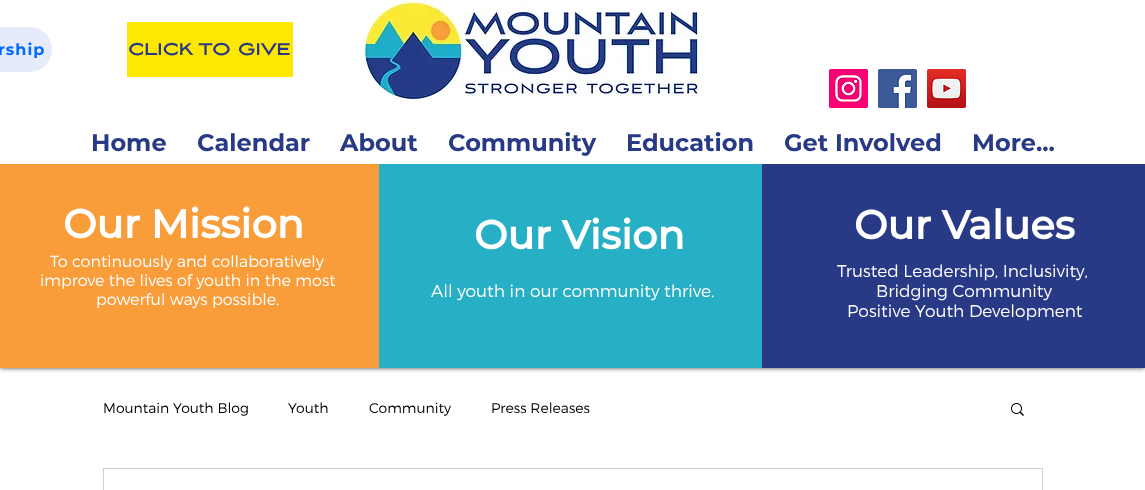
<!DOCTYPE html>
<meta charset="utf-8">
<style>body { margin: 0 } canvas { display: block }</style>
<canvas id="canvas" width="1145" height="490"></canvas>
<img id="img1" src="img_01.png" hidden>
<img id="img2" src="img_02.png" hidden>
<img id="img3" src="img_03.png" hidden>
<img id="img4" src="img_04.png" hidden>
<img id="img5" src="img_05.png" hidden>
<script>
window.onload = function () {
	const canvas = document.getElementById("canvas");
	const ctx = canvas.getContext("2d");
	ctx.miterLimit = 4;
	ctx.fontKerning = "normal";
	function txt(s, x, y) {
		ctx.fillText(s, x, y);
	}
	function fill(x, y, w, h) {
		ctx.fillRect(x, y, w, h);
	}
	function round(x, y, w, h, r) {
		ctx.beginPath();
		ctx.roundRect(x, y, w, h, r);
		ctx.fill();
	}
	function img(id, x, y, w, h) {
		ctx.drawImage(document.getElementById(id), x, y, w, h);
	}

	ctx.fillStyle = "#FFFFFF";
	fill(0, 0, 1145, 490);
	ctx.save();
	ctx.beginPath();
	ctx.rect(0, 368, 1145, 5);
	ctx.clip();
	ctx.fillStyle = "rgba(0, 0, 0, 0.7)";
	ctx.filter = "blur(2.5px)";
	ctx.beginPath();
	ctx.rect(0, 0, 1145, 368);
	ctx.fill();
	ctx.filter = "none";
	ctx.restore();
	ctx.fillStyle = "#E5EBFA";
	round(-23, 27, 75, 45, 22.5);
	ctx.fillStyle = "#FFE800";
	fill(127, 22, 166, 55);
	img("img1", 360, 0, 344, 100);
	img("img2", 829, 69, 39, 39);
	img("img3", 878, 69, 39, 39);
	img("img4", 927, 69, 39, 39);
	ctx.fillStyle = "#F99D3A";
	fill(0, 164, 379, 204);
	ctx.fillStyle = "#26AFC5";
	fill(379, 164, 383, 204);
	ctx.fillStyle = "#283A85";
	fill(762, 164, 383, 204);
	img("img5", 1011, 403, 13, 13);
	ctx.strokeStyle = "#CFCFCF";
	ctx.strokeRect(103.5, 468.5, 939, 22);
	ctx.letterSpacing = "1px";
	ctx.font = "bold 16px Montserrat";
	ctx.fillStyle = "#0069FF";
	txt("rship", -2, 55);
	ctx.letterSpacing = "0px";
	ctx.font = "bold 20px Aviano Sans";
	ctx.fillStyle = "#283A85";
	txt("CLICK TO GIVE", 128, 55);
	ctx.font = "bold 24px Montserrat";
	txt("Home", 91, 151);
	txt("Calendar", 197, 151);
	txt("About", 340, 151);
	txt("Community", 448, 151);
	txt("Education", 626, 151);
	txt("Get Involved", 784, 151);
	txt("More...", 972, 151);
	ctx.font = "bold 40px 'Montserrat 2'";
	ctx.fillStyle = "#FFFFFF";
	txt("Our Mission", 63, 238);
	ctx.font = "300 16px Montserrat";
	txt("To continuously and collaboratively", 50, 267);
	txt("improve the lives of youth in the most", 40, 286);
	txt("powerful ways possible.", 96, 305);
	ctx.font = "bold 40px 'Montserrat 2'";
	txt("Our Vision", 474, 249);
	ctx.font = "300 17px Montserrat";
	txt("All youth in our community thrive.", 431, 297);
	ctx.font = "bold 40px 'Montserrat 2'";
	txt("Our Values", 854, 239);
	ctx.font = "300 17px Montserrat";
	txt("Trusted Leadership, Inclusivity,", 837, 277);
	txt("Bridging Community", 876, 297);
	txt("Positive Youth Development", 847, 317);
	ctx.font = "300 14px Montserrat";
	ctx.fillStyle = "#000000";
	txt("Mountain Youth Blog", 103, 413);
	txt("Youth", 288, 413);
	txt("Community", 369, 413);
	txt("Press Releases", 491, 413);
};
</script>
